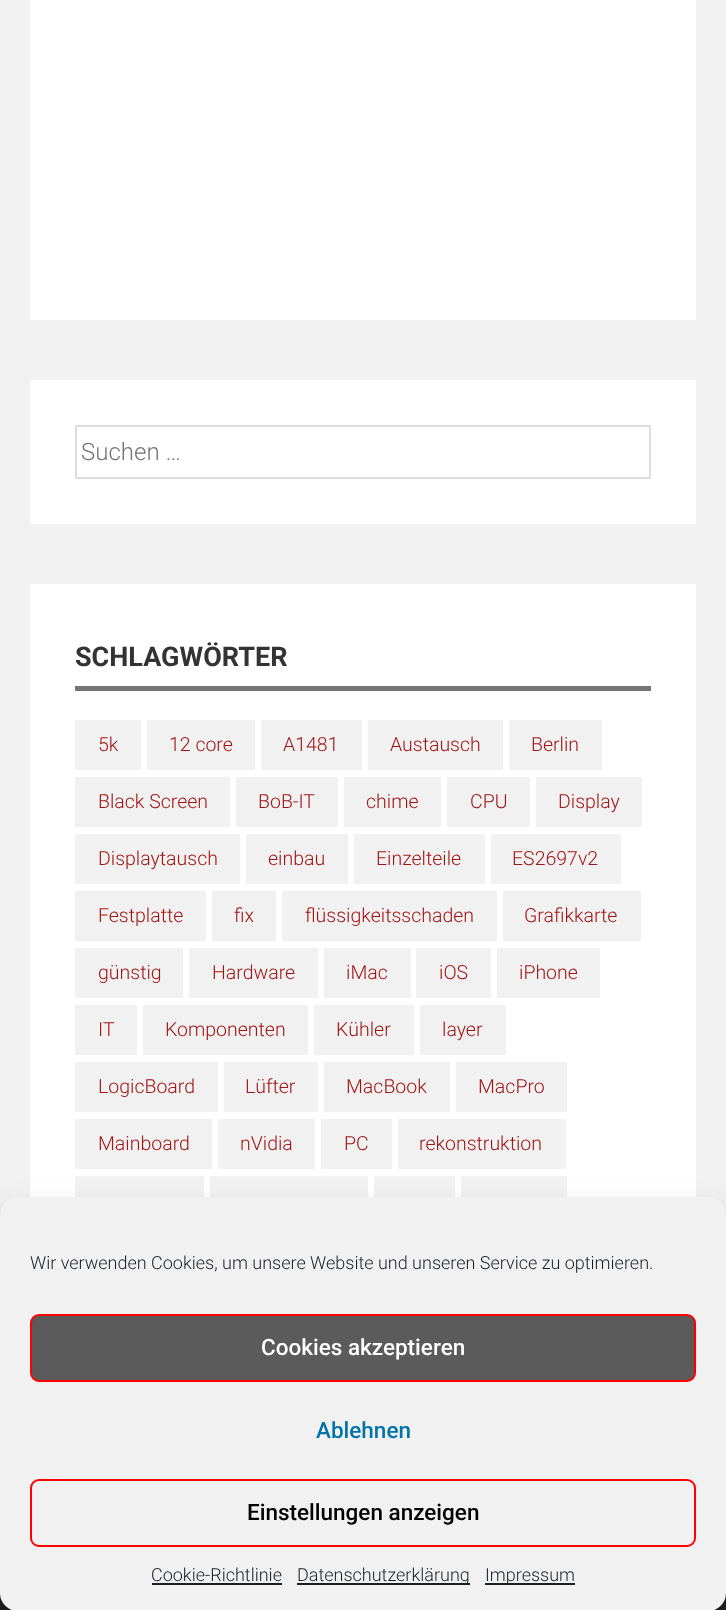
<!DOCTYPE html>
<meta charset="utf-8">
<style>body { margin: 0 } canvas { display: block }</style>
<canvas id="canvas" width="726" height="1610"></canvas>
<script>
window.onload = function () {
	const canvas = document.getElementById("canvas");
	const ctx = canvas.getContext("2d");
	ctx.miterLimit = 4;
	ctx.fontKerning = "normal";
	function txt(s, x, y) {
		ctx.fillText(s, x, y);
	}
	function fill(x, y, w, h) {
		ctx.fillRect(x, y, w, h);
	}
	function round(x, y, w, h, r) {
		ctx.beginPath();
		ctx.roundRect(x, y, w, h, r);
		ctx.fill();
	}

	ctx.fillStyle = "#F1F1F1";
	fill(0, 0, 726, 1610);
	ctx.fillStyle = "#FFFFFF";
	fill(30, 0, 666, 320);
	fill(30, 380, 666, 144);
	ctx.beginPath();
	ctx.roundRect(76, 426, 574, 52, 0.5);
	ctx.strokeStyle = "#DDDDDD";
	ctx.lineWidth = 2;
	ctx.stroke();
	fill(30, 584, 666, 613);
	ctx.fillStyle = "#757575";
	fill(75, 686, 576, 5);
	ctx.fillStyle = "#F1F1F1";
	fill(75, 720, 66, 50);
	fill(147, 720, 108, 50);
	fill(261, 720, 101, 50);
	fill(368, 720, 135, 50);
	fill(509, 720, 93, 50);
	fill(75, 777, 155, 50);
	fill(236, 777, 102, 50);
	fill(344, 777, 97, 50);
	fill(447, 777, 83, 50);
	fill(536, 777, 106, 50);
	fill(75, 834, 165, 50);
	fill(246, 834, 102, 50);
	fill(354, 834, 131, 50);
	fill(491, 834, 130, 50);
	fill(75, 891, 131, 50);
	fill(212, 891, 64, 50);
	fill(282, 891, 215, 50);
	fill(503, 891, 138, 50);
	fill(75, 948, 108, 50);
	fill(189, 948, 129, 50);
	fill(324, 948, 87, 50);
	fill(416, 948, 75, 50);
	fill(497, 948, 103, 50);
	fill(75, 1005, 62, 50);
	fill(143, 1005, 165, 50);
	fill(314, 1005, 100, 50);
	fill(420, 1005, 86, 50);
	fill(75, 1062, 143, 50);
	fill(224, 1062, 94, 50);
	fill(324, 1062, 126, 50);
	fill(456, 1062, 111, 50);
	fill(75, 1119, 137, 50);
	fill(218, 1119, 97, 50);
	fill(321, 1119, 71, 50);
	fill(398, 1119, 168, 50);
	fill(75, 1176, 129, 21);
	fill(210, 1176, 158, 21);
	fill(374, 1176, 81, 21);
	fill(461, 1176, 106, 21);
	ctx.fillStyle = "#272727";
	fill(0, 1593, 726, 17);
	ctx.fillStyle = "rgba(0, 0, 0, 0.23)";
	ctx.filter = "blur(4.5px)";
	ctx.beginPath();
	ctx.roundRect(0, 1206, 726, 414, 18);
	ctx.fill();
	ctx.filter = "none";
	ctx.fillStyle = "rgba(0, 0, 0, 0.19)";
	ctx.filter = "blur(15px)";
	ctx.beginPath();
	ctx.roundRect(0, 1212, 726, 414, 18);
	ctx.fill();
	ctx.filter = "none";
	ctx.fillStyle = "#F1F1F1";
	round(0, 1197, 726, 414, 18);
	ctx.fillStyle = "#5B5B5B";
	ctx.beginPath();
	ctx.roundRect(31, 1315, 664, 66, 8);
	ctx.fill();
	ctx.strokeStyle = "#FF0000";
	ctx.stroke();
	ctx.beginPath();
	ctx.roundRect(31, 1480, 664, 66, 8);
	ctx.stroke();
	ctx.fillStyle = "#191E23";
	fill(152, 1583, 130, 2);
	fill(297, 1583, 173, 2);
	fill(485, 1583, 90, 2);
	ctx.font = "300 24px Roboto";
	ctx.fillStyle = "#757575";
	txt("Suchen …", 81, 460);
	ctx.font = "bold 27px Roboto";
	ctx.fillStyle = "#333333";
	txt("SCHLAGWÖRTER", 75, 666);
	ctx.font = "300 19.5px Roboto";
	ctx.fillStyle = "#A11414";
	txt("5k", 98, 751);
	txt("12 core", 169, 751);
	txt("A1481", 283, 751);
	txt("Austausch", 390, 751);
	txt("Berlin", 531, 751);
	txt("Black Screen", 98, 808);
	txt("BoB-IT", 258, 808);
	txt("chime", 366, 808);
	txt("CPU", 470, 808);
	txt("Display", 558, 808);
	txt("Displaytausch", 98, 865);
	txt("einbau", 268, 865);
	txt("Einzelteile", 376, 865);
	txt("ES2697v2", 512, 865);
	txt("Festplatte", 98, 922);
	txt("fix", 234, 922);
	txt("flüssigkeitsschaden", 305, 922);
	txt("Grafikkarte", 524, 922);
	txt("günstig", 98, 979);
	txt("Hardware", 212, 979);
	txt("iMac", 346, 979);
	txt("iOS", 439, 979);
	txt("iPhone", 519, 979);
	txt("IT", 98, 1036);
	txt("Komponenten", 165, 1036);
	txt("Kühler", 336, 1036);
	txt("layer", 442, 1036);
	txt("LogicBoard", 98, 1093);
	txt("Lüfter", 245, 1093);
	txt("MacBook", 346, 1093);
	txt("MacPro", 478, 1093);
	txt("Mainboard", 98, 1150);
	txt("nVidia", 240, 1150);
	txt("PC", 344, 1150);
	txt("rekonstruktion", 419, 1150);
	ctx.font = "300 18px Roboto";
	ctx.fillStyle = "#191E23";
	txt("Wir verwenden Cookies, um unsere Website und unseren Service zu optimieren.", 30, 1269);
	ctx.font = "500 22.5px Roboto";
	ctx.fillStyle = "#FFFFFF";
	txt("Cookies akzeptieren", 261, 1355);
	ctx.fillStyle = "#0073AA";
	txt("Ablehnen", 316, 1438);
	ctx.fillStyle = "#000000";
	txt("Einstellungen anzeigen", 247, 1520);
	ctx.font = "300 18px Roboto";
	ctx.fillStyle = "#191E23";
	txt("Cookie-Richtlinie", 151, 1581);
	txt("Datenschutzerklärung", 297, 1581);
	txt("Impressum", 485, 1581);
};
</script>
